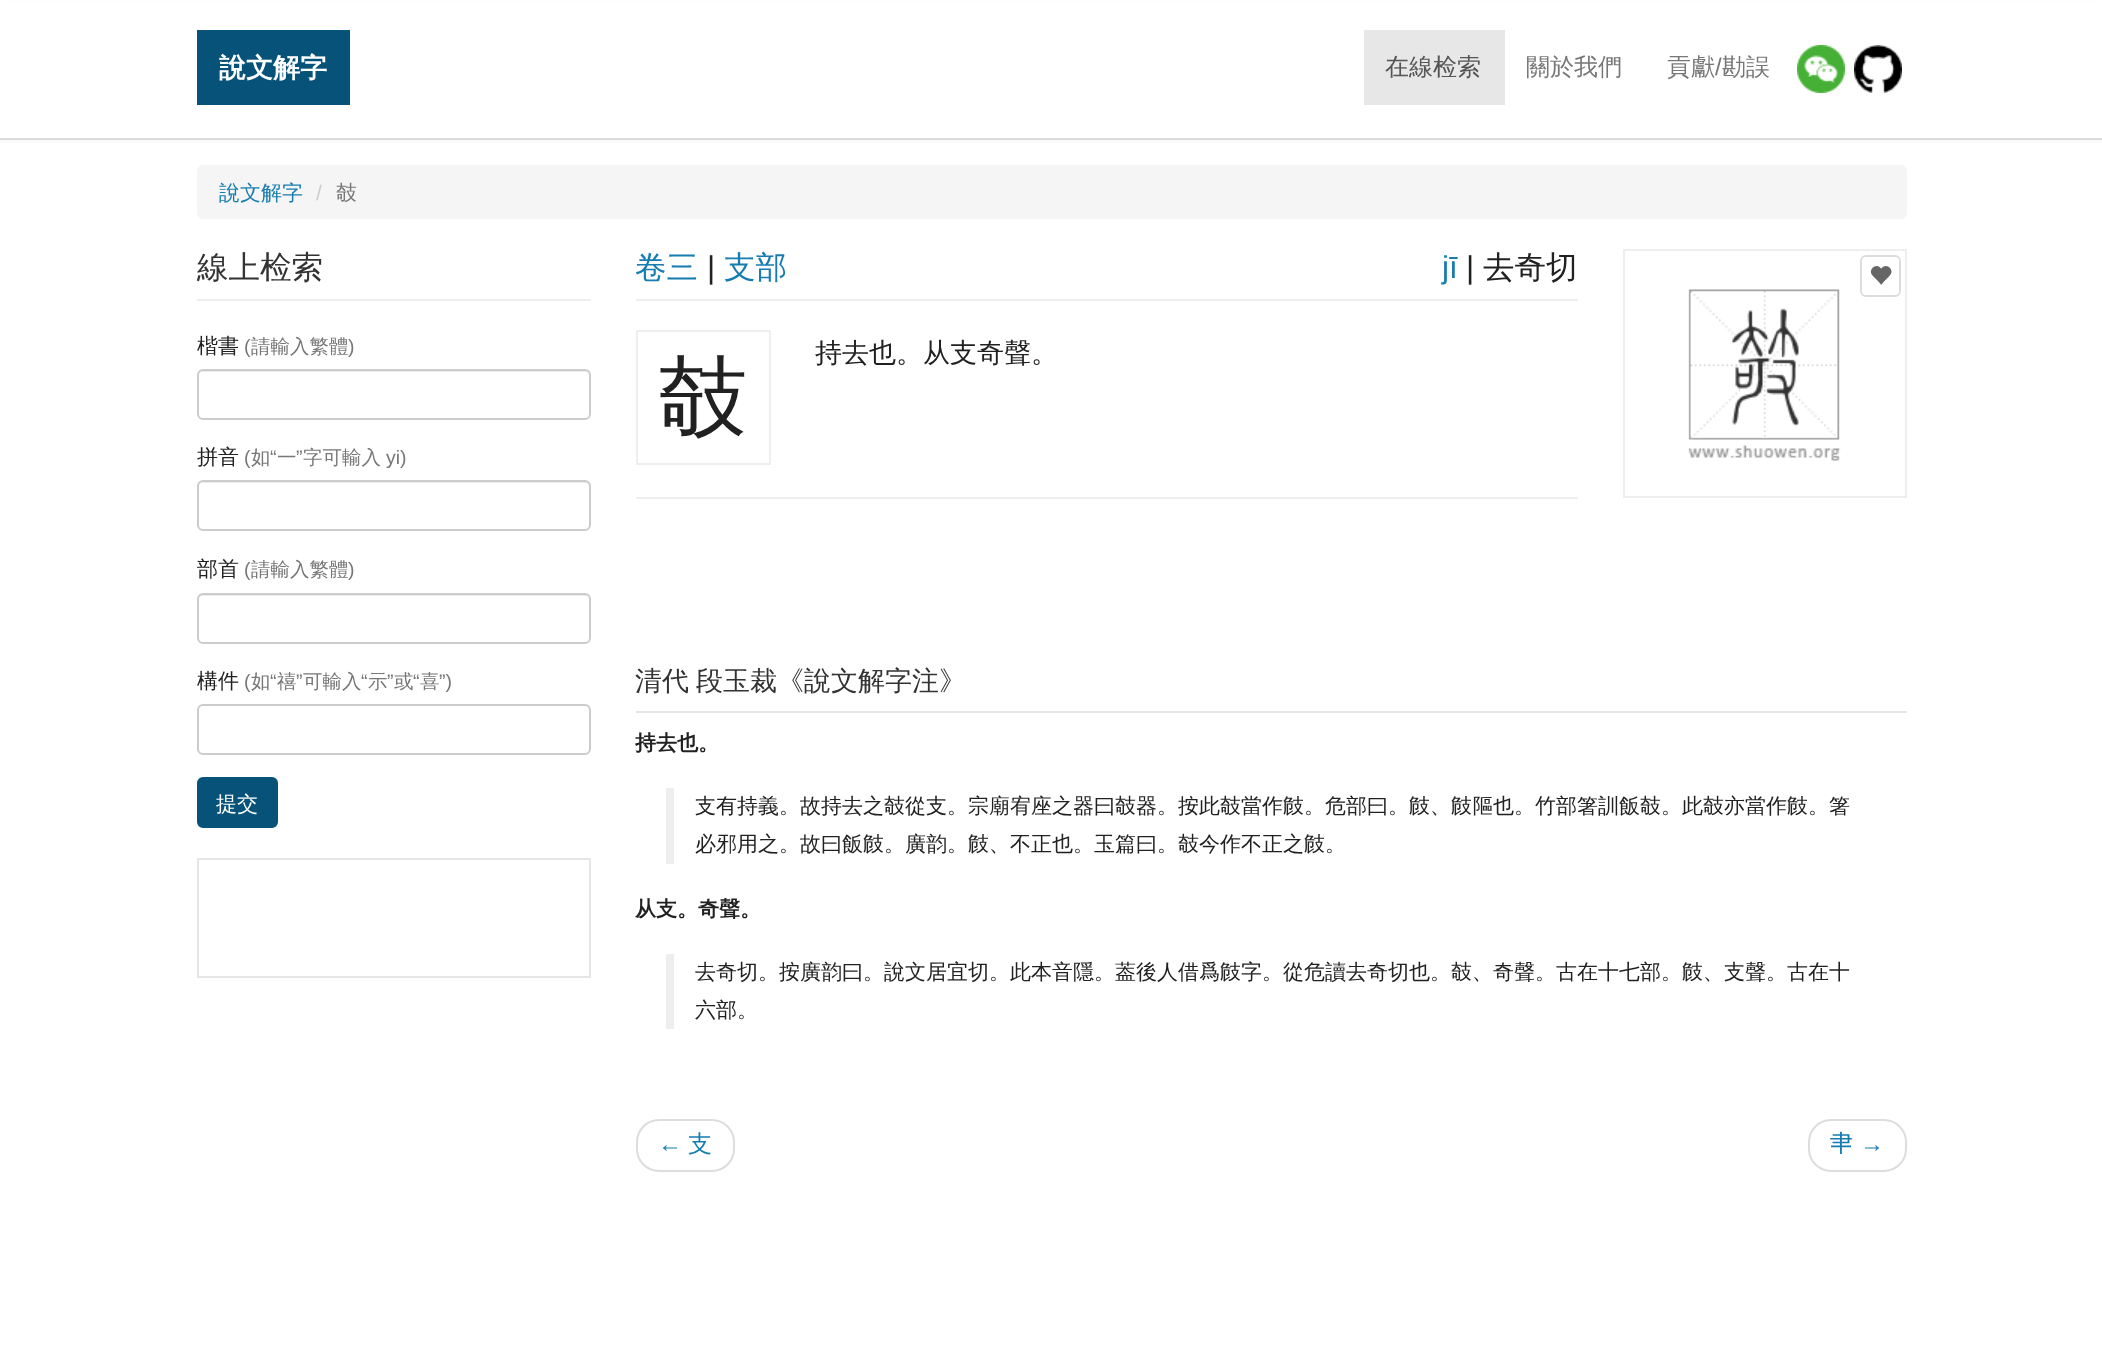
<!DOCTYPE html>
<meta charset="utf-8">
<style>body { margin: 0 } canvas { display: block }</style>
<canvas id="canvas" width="2102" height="1372"></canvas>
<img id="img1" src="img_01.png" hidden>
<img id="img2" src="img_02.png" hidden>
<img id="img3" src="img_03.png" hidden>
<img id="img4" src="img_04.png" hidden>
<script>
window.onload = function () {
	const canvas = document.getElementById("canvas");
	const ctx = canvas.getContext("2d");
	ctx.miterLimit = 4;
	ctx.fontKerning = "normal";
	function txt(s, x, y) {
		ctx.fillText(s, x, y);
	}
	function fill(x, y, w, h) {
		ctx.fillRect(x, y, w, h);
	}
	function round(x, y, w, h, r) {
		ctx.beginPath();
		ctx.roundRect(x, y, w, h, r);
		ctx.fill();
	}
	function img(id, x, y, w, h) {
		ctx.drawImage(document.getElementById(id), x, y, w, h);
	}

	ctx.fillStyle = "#FFFFFF";
	fill(0, 0, 2102, 1372);
	ctx.fillStyle = "rgba(0, 0, 0, 0.04)";
	ctx.filter = "blur(1.5px)";
	ctx.beginPath();
	ctx.rect(0, 2, 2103, 139);
	ctx.fill();
	ctx.filter = "none";
	ctx.fillStyle = "#FFFFFF";
	fill(0, 1, 2102, 137);
	ctx.fillStyle = "#DBDBDB";
	fill(0, 138, 2102, 2);
	ctx.fillStyle = "#065279";
	fill(197, 30, 153, 75);
	ctx.fillStyle = "#E7E7E7";
	fill(1364, 30, 141, 75);
	img("img1", 1797, 45, 48, 48);
	img("img2", 1854, 45, 48, 48);
	ctx.fillStyle = "#F5F5F5";
	round(197, 165, 1710, 54, 6);
	ctx.fillStyle = "#EEEEEE";
	fill(197, 299, 394, 2);
	ctx.fillStyle = "#ECECEC";
	ctx.beginPath();
	ctx.moveTo(202, 372);
	ctx.lineTo(585, 372);
	ctx.bezierCurveTo(587, 372, 590, 374, 590, 376);
	ctx.bezierCurveTo(590, 373, 588, 371, 585, 371);
	ctx.lineTo(203, 371);
	ctx.bezierCurveTo(200, 371, 198, 373, 198, 376);
	ctx.bezierCurveTo(198, 374, 200, 372, 202, 372);
	ctx.closePath();
	ctx.fill();
	ctx.beginPath();
	ctx.roundRect(198, 370, 392, 49, 5);
	ctx.strokeStyle = "#CCCCCC";
	ctx.lineWidth = 2;
	ctx.stroke();
	ctx.beginPath();
	ctx.moveTo(202, 483);
	ctx.lineTo(585, 483);
	ctx.bezierCurveTo(587, 483, 590, 485, 590, 488);
	ctx.lineTo(590, 487);
	ctx.bezierCurveTo(590, 484, 588, 482, 585, 482);
	ctx.lineTo(203, 482);
	ctx.bezierCurveTo(200, 482, 198, 484, 198, 487);
	ctx.lineTo(198, 488);
	ctx.bezierCurveTo(198, 485, 200, 483, 202, 483);
	ctx.closePath();
	ctx.fill();
	ctx.beginPath();
	ctx.roundRect(198, 481, 392, 49, 5);
	ctx.stroke();
	ctx.beginPath();
	ctx.moveTo(202, 596);
	ctx.lineTo(585, 596);
	ctx.bezierCurveTo(587, 596, 590, 598, 590, 600);
	ctx.lineTo(590, 599);
	ctx.bezierCurveTo(590, 596, 588, 594, 585, 594);
	ctx.lineTo(203, 594);
	ctx.bezierCurveTo(200, 594, 198, 596, 198, 599);
	ctx.lineTo(198, 600);
	ctx.bezierCurveTo(198, 598, 200, 596, 202, 596);
	ctx.closePath();
	ctx.fill();
	ctx.beginPath();
	ctx.roundRect(198, 594, 392, 49, 5);
	ctx.stroke();
	ctx.beginPath();
	ctx.moveTo(202, 706);
	ctx.lineTo(585, 706);
	ctx.bezierCurveTo(587, 706, 590, 709, 590, 711);
	ctx.lineTo(590, 710);
	ctx.bezierCurveTo(590, 707, 588, 705, 585, 705);
	ctx.lineTo(203, 705);
	ctx.bezierCurveTo(200, 705, 198, 707, 198, 710);
	ctx.lineTo(198, 711);
	ctx.bezierCurveTo(198, 709, 200, 706, 202, 706);
	ctx.closePath();
	ctx.fill();
	ctx.beginPath();
	ctx.roundRect(198, 705, 392, 49, 5);
	ctx.stroke();
	ctx.fillStyle = "#065279";
	ctx.beginPath();
	ctx.roundRect(198, 778, 79, 49, 5);
	ctx.fill();
	ctx.strokeStyle = "#065279";
	ctx.stroke();
	ctx.strokeStyle = "#E5E5E5";
	ctx.strokeRect(198, 859, 392, 118);
	ctx.fillStyle = "#EEEEEE";
	fill(636, 299, 942, 2);
	fill(636, 497, 942, 2);
	ctx.strokeStyle = "#EEEEEE";
	ctx.strokeRect(637, 331, 133, 133);
	ctx.strokeRect(1624, 250, 282, 247);
	ctx.beginPath();
	ctx.roundRect(1861, 256, 39, 40, 5);
	ctx.strokeStyle = "#DDDDDD";
	ctx.stroke();
	img("img3", 1870, 266, 22, 19);
	img("img4", 1688, 289, 153, 172);
	ctx.fillStyle = "#E5E5E5";
	fill(636, 711, 1271, 2);
	ctx.fillStyle = "#EEEEEE";
	fill(666, 788, 8, 76);
	fill(666, 954, 8, 75);
	ctx.beginPath();
	ctx.roundRect(637, 1120, 97, 51, 22);
	ctx.stroke();
	ctx.beginPath();
	ctx.roundRect(1809, 1120, 97, 51, 22);
	ctx.stroke();
	ctx.font = "bold 27px WenQuanYi Zen Hei";
	ctx.fillStyle = "#FFFFFF";
	txt("說文解字", 219, 77);
	ctx.font = "500 24px WenQuanYi Zen Hei";
	ctx.fillStyle = "#555555";
	txt("在線检索", 1385, 75);
	ctx.fillStyle = "#777777";
	txt("關於我們", 1526, 75);
	txt("貢獻", 1667, 75);
	ctx.font = "24px Liberation Sans";
	txt("/", 1715, 75);
	ctx.font = "500 24px WenQuanYi Zen Hei";
	txt("勘誤", 1722, 75);
	ctx.font = "500 21px WenQuanYi Zen Hei";
	ctx.fillStyle = "#177CB0";
	txt("說文解字", 219, 200);
	ctx.font = "21px Liberation Sans";
	ctx.fillStyle = "#CCCCCC";
	txt("/", 316, 200);
	ctx.font = "500 21px WenQuanYi Zen Hei";
	ctx.fillStyle = "#777777";
	txt("攲", 336, 200);
	ctx.font = "500 31.5px WenQuanYi Zen Hei";
	ctx.fillStyle = "#333333";
	txt("線上检索", 197, 278);
	ctx.font = "500 21px WenQuanYi Zen Hei";
	ctx.fillStyle = "#212121";
	txt("楷書", 197, 353);
	ctx.font = "19.5px Liberation Sans";
	ctx.fillStyle = "#777777";
	txt("(", 244, 353);
	ctx.font = "500 19.5px WenQuanYi Zen Hei";
	txt("請輸入繁體", 251, 353);
	ctx.font = "19.5px Liberation Sans";
	txt(")", 348, 353);
	ctx.font = "500 21px WenQuanYi Zen Hei";
	ctx.fillStyle = "#212121";
	txt("拼音", 197, 464);
	ctx.font = "19.5px Liberation Sans";
	ctx.fillStyle = "#777777";
	txt("(", 244, 464);
	ctx.font = "500 19.5px WenQuanYi Zen Hei";
	txt("如", 251, 464);
	ctx.font = "19.5px Liberation Sans";
	txt("“", 270, 464);
	txt("”", 296, 464);
	ctx.font = "500 19.5px WenQuanYi Zen Hei";
	txt("字可輸入", 303, 464);
	ctx.font = "19.5px Liberation Sans";
	txt("yi)", 386, 464);
	ctx.font = "500 19.5px WenQuanYi Zen Hei";
	txt("一", 277, 464);
	ctx.font = "500 21px WenQuanYi Zen Hei";
	ctx.fillStyle = "#212121";
	txt("部首", 197, 576);
	ctx.font = "19.5px Liberation Sans";
	ctx.fillStyle = "#777777";
	txt("(", 244, 576);
	ctx.font = "500 19.5px WenQuanYi Zen Hei";
	txt("請輸入繁體", 251, 576);
	ctx.font = "19.5px Liberation Sans";
	txt(")", 348, 576);
	ctx.font = "500 21px WenQuanYi Zen Hei";
	ctx.fillStyle = "#212121";
	txt("構件", 197, 688);
	ctx.font = "19.5px Liberation Sans";
	ctx.fillStyle = "#777777";
	txt("(", 244, 688);
	ctx.font = "500 19.5px WenQuanYi Zen Hei";
	txt("如", 251, 688);
	ctx.font = "19.5px Liberation Sans";
	txt("“", 270, 688);
	ctx.font = "500 19.5px WenQuanYi Zen Hei";
	txt("禧", 277, 688);
	ctx.font = "19.5px Liberation Sans";
	txt("”", 296, 688);
	ctx.font = "500 19.5px WenQuanYi Zen Hei";
	txt("可輸入", 303, 688);
	ctx.font = "19.5px Liberation Sans";
	txt("“", 361, 688);
	ctx.font = "500 19.5px WenQuanYi Zen Hei";
	txt("示", 368, 688);
	ctx.font = "19.5px Liberation Sans";
	txt("”", 387, 688);
	ctx.font = "500 19.5px WenQuanYi Zen Hei";
	txt("或", 394, 688);
	ctx.font = "19.5px Liberation Sans";
	txt("“", 413, 688);
	ctx.font = "500 19.5px WenQuanYi Zen Hei";
	txt("喜", 420, 688);
	ctx.font = "19.5px Liberation Sans";
	txt("”)", 439, 688);
	ctx.font = "500 21px WenQuanYi Zen Hei";
	ctx.fillStyle = "#FFFFFF";
	txt("提交", 216, 811);
	ctx.font = "500 31.5px WenQuanYi Zen Hei";
	ctx.fillStyle = "#177CB0";
	txt("卷三", 635, 278);
	ctx.font = "31.5px Liberation Sans";
	ctx.fillStyle = "#212121";
	txt("|", 707, 278);
	ctx.font = "500 31.5px WenQuanYi Zen Hei";
	ctx.fillStyle = "#177CB0";
	txt("支部", 724, 278);
	ctx.font = "31.5px Liberation Sans";
	txt("jī", 1442, 278);
	ctx.fillStyle = "#212121";
	txt("|", 1466, 278);
	ctx.font = "500 31.5px WenQuanYi Zen Hei";
	txt("去奇切", 1483, 278);
	ctx.font = "500 90px WenQuanYi Zen Hei";
	txt("攲", 658, 429);
	ctx.font = "500 27px WenQuanYi Zen Hei";
	txt("持去也。从支奇聲。", 815, 362);
	ctx.wordSpacing = "-1px";
	ctx.fillStyle = "#333333";
	txt("清代 段玉裁《說文解字注》", 635, 690);
	ctx.wordSpacing = "0px";
	ctx.font = "bold 21px WenQuanYi Zen Hei";
	ctx.fillStyle = "#212121";
	txt("持去也。", 635, 750);
	ctx.font = "500 21px WenQuanYi Zen Hei";
	txt("支有持義。故持去之攲從支。宗廟宥座之器曰攲器。按此攲當作㩻。危部曰。㩻、㩻䧢也。竹部箸訓飯攲。此攲亦當作㩻。箸", 695, 813);
	txt("必邪用之。故曰飯㩻。廣韵。㩻、不正也。玉篇曰。攲今作不正之㩻。", 695, 851);
	ctx.font = "bold 21px WenQuanYi Zen Hei";
	txt("从支。奇聲。", 635, 916);
	ctx.font = "500 21px WenQuanYi Zen Hei";
	txt("去奇切。按廣韵曰。說文居宜切。此本音隱。葢後人借爲㩻字。從危讀去奇切也。攲、奇聲。古在十七部。㩻、支聲。古在十", 695, 979);
	txt("六部。", 695, 1017);
	ctx.font = "24px Liberation Sans";
	ctx.fillStyle = "#177CB0";
	txt("←", 658, 1152);
	ctx.font = "500 24px WenQuanYi Zen Hei";
	txt("支", 688, 1152);
	ctx.font = "24px Chiron Hei HK";
	txt("𦘒", 1829, 1152);
	ctx.font = "24px Liberation Sans";
	txt("→", 1860, 1152);
};
</script>
